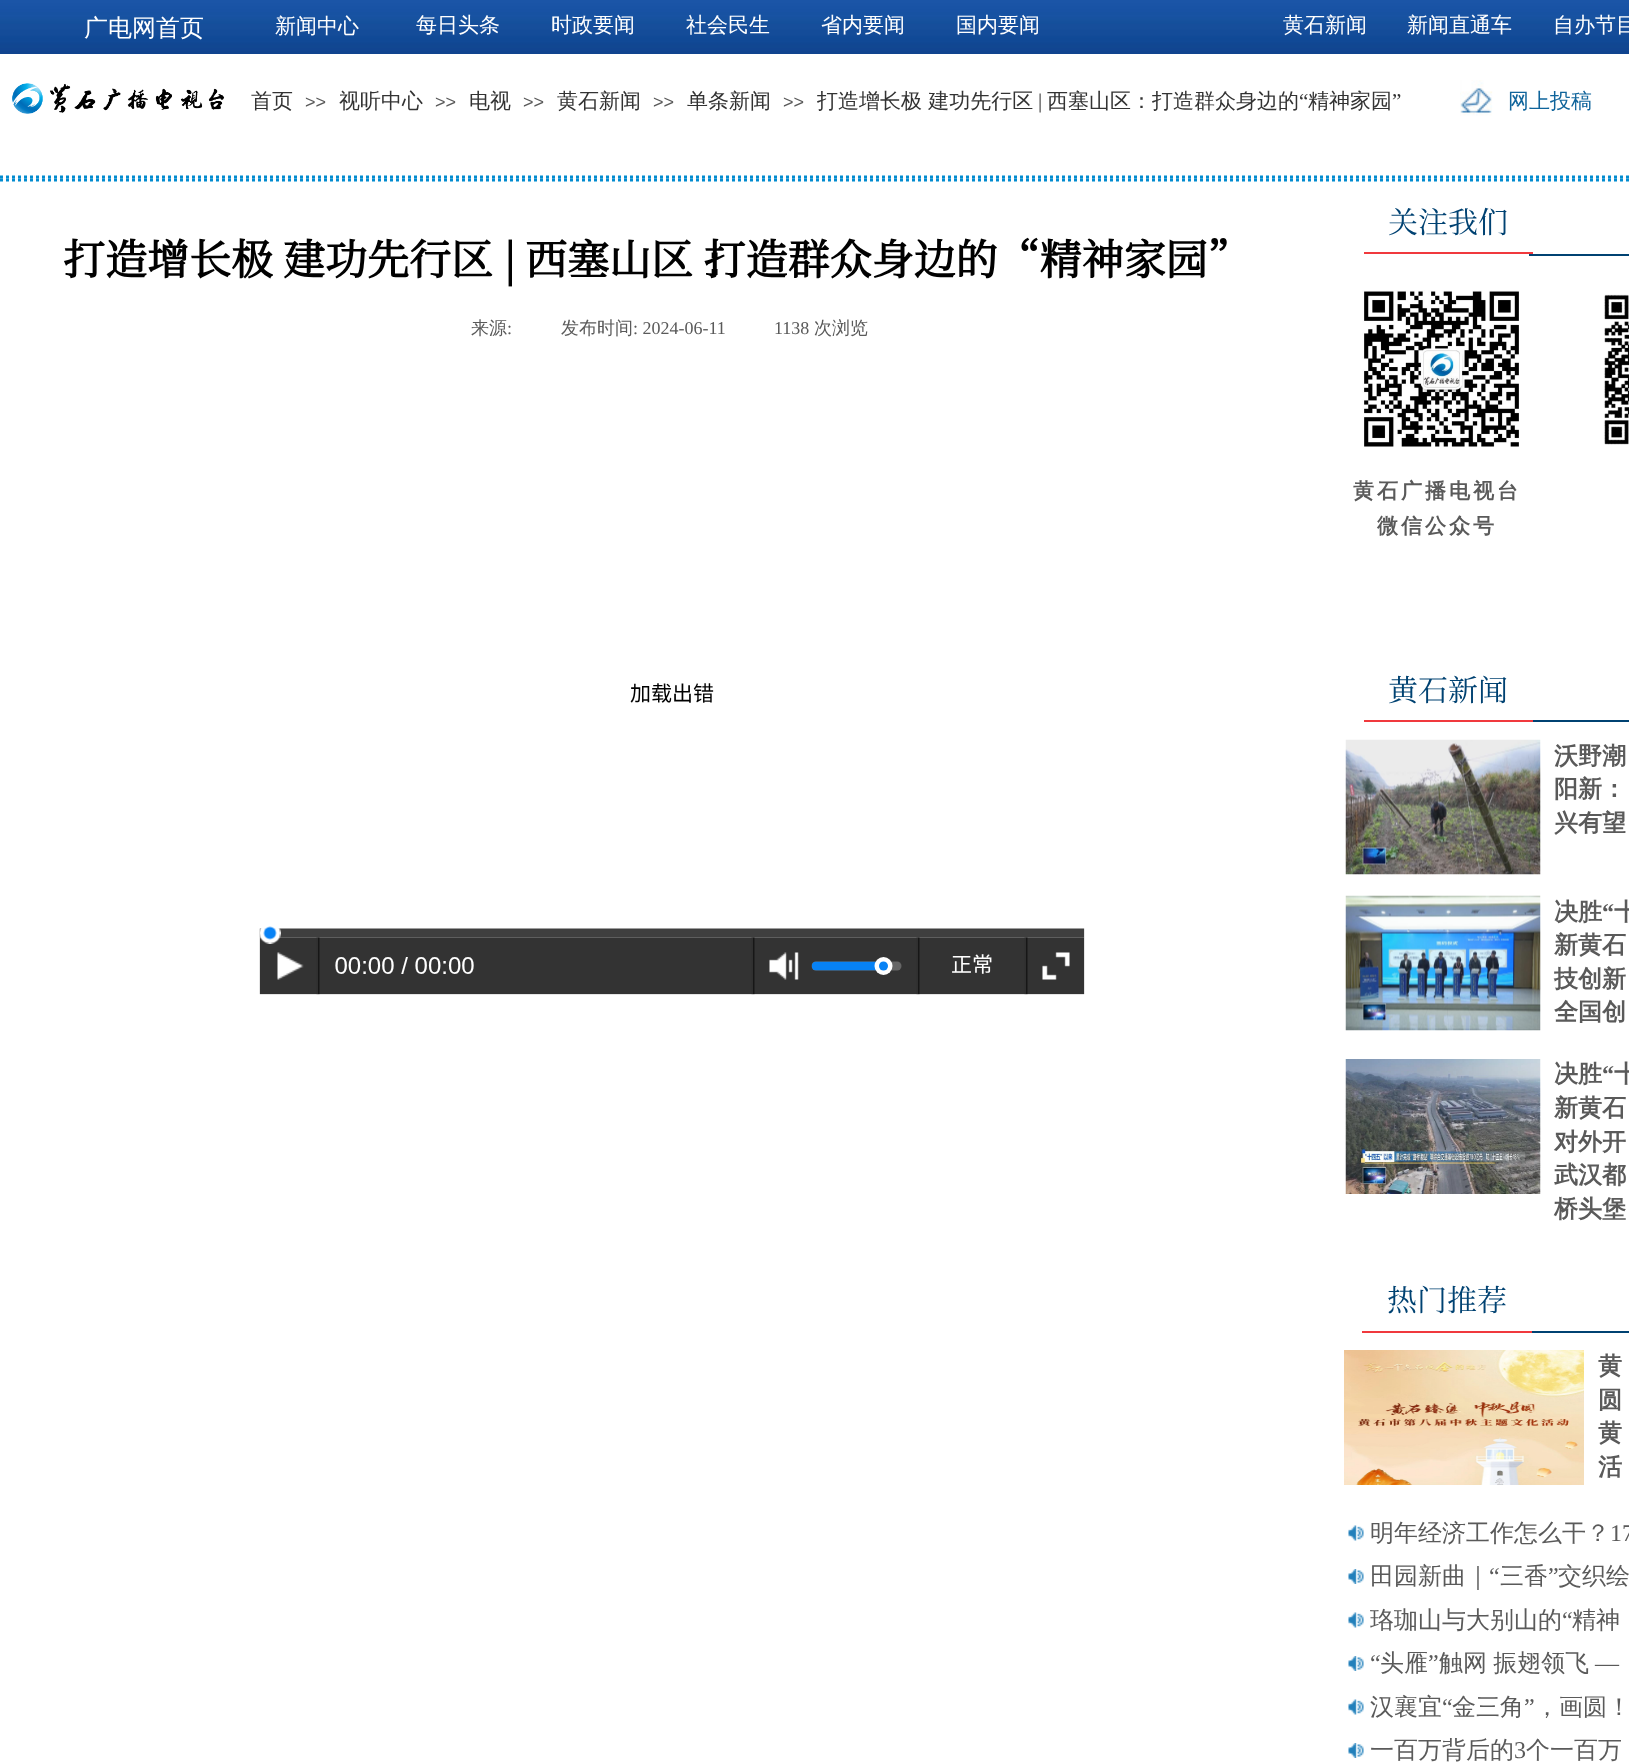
<!DOCTYPE html>
<meta charset="utf-8">
<style>body { margin: 0 } canvas { display: block }</style>
<canvas id="canvas" width="1629" height="1763"></canvas>
<img id="img1" src="img_01.png" hidden>
<img id="img2" src="img_02.png" hidden>
<img id="img3" src="img_03.png" hidden>
<img id="img4" src="img_04.png" hidden>
<img id="img5" src="img_05.png" hidden>
<img id="img6" src="img_06.png" hidden>
<img id="img7" src="img_07.png" hidden>
<img id="img8" src="img_08.png" hidden>
<img id="img9" src="img_09.png" hidden>
<img id="img10" src="img_10.png" hidden>
<img id="img11" src="img_11.png" hidden>
<img id="img12" src="img_12.png" hidden>
<script>
window.onload = function () {
	const canvas = document.getElementById("canvas");
	const ctx = canvas.getContext("2d");
	ctx.miterLimit = 4;
	ctx.fontKerning = "normal";
	function txt(s, x, y) {
		ctx.fillText(s, x, y);
	}
	function fill(x, y, w, h) {
		ctx.fillRect(x, y, w, h);
	}
	function img(id, x, y, w, h) {
		ctx.drawImage(document.getElementById(id), x, y, w, h);
	}

	ctx.fillStyle = "#FFFFFF";
	fill(0, 0, 1629, 1763);
	img("img1", 0, 0, 1629, 54);
	img("img2", 12, 83, 213, 31);
	img("img3", 1460, 80, 33, 36);
	ctx.beginPath();
	ctx.moveTo(0, 177);
	ctx.lineTo(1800, 177);
	ctx.strokeStyle = "#028BCF";
	ctx.lineWidth = 3;
	ctx.setLineDash([3, 3]);
	ctx.stroke();
	ctx.beginPath();
	ctx.moveTo(0, 180);
	ctx.lineTo(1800, 180);
	ctx.stroke();
	ctx.fillStyle = "#F0393D";
	fill(1364, 252, 169, 2);
	img("img4", 259, 683, 826, 312);
	ctx.fillStyle = "#004272";
	fill(1529, 254, 100, 2);
	img("img5", 1362, 290, 157, 157);
	img("img6", 1604, 294, 25, 151);
	fill(1529, 720, 100, 2);
	ctx.fillStyle = "#F0393D";
	fill(1364, 720, 169, 2);
	img("img7", 1345, 739, 196, 136);
	img("img8", 1345, 895, 196, 136);
	img("img9", 1345, 1059, 196, 135);
	ctx.fillStyle = "#004272";
	fill(1527, 1331, 102, 2);
	ctx.fillStyle = "#F0393D";
	fill(1362, 1331, 170, 2);
	img("img10", 1344, 1350, 240, 135);
	img("img11", 1348, 1525, 16, 16);
	img("img12", 1348, 1569, 16, 15);
	img("img11", 1348, 1612, 16, 16);
	img("img12", 1348, 1656, 16, 15);
	img("img11", 1348, 1699, 16, 16);
	img("img12", 1348, 1743, 16, 15);
	ctx.font = "500 24px WenQuanYi Zen Hei";
	ctx.fillStyle = "#FFFFFF";
	txt("广电网首页", 84, 36);
	ctx.font = "500 21px WenQuanYi Zen Hei";
	txt("新闻中心", 275, 33);
	txt("每日头条", 416, 32);
	txt("时政要闻", 551, 32);
	txt("社会民生", 686, 32);
	txt("省内要闻", 821, 32);
	txt("国内要闻", 956, 32);
	txt("黄石新闻", 1283, 32);
	txt("新闻直通车", 1407, 32);
	txt("自办节目", 1553, 32);
	ctx.fillStyle = "#333333";
	txt("首页", 251, 108);
	ctx.font = "18px Liberation Sans";
	ctx.fillStyle = "#5A5A5A";
	txt(">>", 305, 108);
	ctx.font = "500 21px WenQuanYi Zen Hei";
	ctx.fillStyle = "#333333";
	txt("视听中心", 339, 108);
	ctx.font = "18px Liberation Sans";
	ctx.fillStyle = "#5A5A5A";
	txt(">>", 435, 108);
	ctx.font = "500 21px WenQuanYi Zen Hei";
	ctx.fillStyle = "#333333";
	txt("电视", 469, 108);
	ctx.font = "18px Liberation Sans";
	ctx.fillStyle = "#5A5A5A";
	txt(">>", 523, 108);
	ctx.font = "500 21px WenQuanYi Zen Hei";
	ctx.fillStyle = "#333333";
	txt("黄石新闻", 557, 108);
	ctx.font = "18px Liberation Sans";
	ctx.fillStyle = "#5A5A5A";
	txt(">>", 653, 108);
	ctx.font = "500 21px WenQuanYi Zen Hei";
	ctx.fillStyle = "#333333";
	txt("单条新闻", 687, 108);
	ctx.font = "18px Liberation Sans";
	ctx.fillStyle = "#5A5A5A";
	txt(">>", 783, 108);
	ctx.font = "500 21px WenQuanYi Zen Hei";
	ctx.fillStyle = "#333333";
	txt("打造增长极 建功先行区", 817, 108);
	ctx.font = "21px Liberation Serif";
	txt("|", 1038, 108);
	ctx.font = "500 21px WenQuanYi Zen Hei";
	txt("西塞山区：打造群众身边的", 1047, 108);
	ctx.font = "21px Liberation Serif";
	txt("“", 1299, 108);
	ctx.font = "500 21px WenQuanYi Zen Hei";
	txt("精神家园", 1308, 108);
	ctx.font = "21px Liberation Serif";
	txt("”", 1392, 108);
	ctx.font = "500 21px WenQuanYi Zen Hei";
	ctx.fillStyle = "#0F649B";
	txt("网上投稿", 1508, 108);
	ctx.font = "30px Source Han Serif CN";
	ctx.fillStyle = "#004272";
	txt("关注我们", 1388, 233);
	ctx.font = "bold 42px Source Han Serif CN";
	ctx.fillStyle = "#010101";
	txt("打造增长极", 63, 275);
	txt("建功先行区", 283, 275);
	txt("|", 504, 275);
	txt("西塞山区 打造群众身边的“精神家园”", 525, 275);
	ctx.font = "bold 42px WenQuanYi Zen Hei";
	txt("：", 693, 275);
	ctx.font = "500 18px WenQuanYi Zen Hei";
	ctx.fillStyle = "#5A5A5A";
	txt("来源", 471, 334);
	ctx.font = "18px Liberation Serif";
	txt(":", 507, 334);
	ctx.font = "500 18px WenQuanYi Zen Hei";
	txt("发布时间", 561, 334);
	ctx.font = "18px Liberation Serif";
	txt(": 2024-06-11", 633, 334);
	txt("1138", 774, 334);
	ctx.font = "500 18px WenQuanYi Zen Hei";
	txt("次浏览", 814, 334);
	ctx.letterSpacing = "3px";
	ctx.font = "bold 21px WenQuanYi Zen Hei";
	txt("黄石广播电视台", 1353, 498);
	txt("微信公众号", 1377, 533);
	ctx.letterSpacing = "0px";
	ctx.font = "30px Source Han Serif CN";
	ctx.fillStyle = "#004272";
	txt("黄石新闻", 1388, 701);
	ctx.wordSpacing = "-1px";
	ctx.font = "bold 24px WenQuanYi Zen Hei";
	ctx.fillStyle = "#5A5A5A";
	txt("沃野潮", 1554, 764);
	txt("阳新：", 1554, 797);
	ctx.wordSpacing = "0px";
	txt("兴有望", 1554, 831);
	txt("决胜", 1554, 920);
	ctx.font = "bold 24px Liberation Serif";
	txt("“", 1602, 920);
	ctx.font = "bold 24px WenQuanYi Zen Hei";
	txt("十", 1614, 920);
	txt("新黄石", 1554, 953);
	ctx.wordSpacing = "-1px";
	txt("技创新", 1554, 987);
	ctx.wordSpacing = "0px";
	txt("全国创", 1554, 1020);
	txt("决胜", 1554, 1082);
	ctx.font = "bold 24px Liberation Serif";
	txt("“", 1602, 1082);
	ctx.font = "bold 24px WenQuanYi Zen Hei";
	txt("十", 1614, 1082);
	txt("新黄石", 1554, 1116);
	ctx.wordSpacing = "-1px";
	txt("对外开", 1554, 1150);
	ctx.wordSpacing = "0px";
	txt("武汉都", 1554, 1183);
	txt("桥头堡", 1554, 1217);
	ctx.font = "30px Source Han Serif CN";
	ctx.fillStyle = "#004272";
	txt("热门推荐", 1387, 1311);
	ctx.wordSpacing = "-1px";
	ctx.font = "bold 24px WenQuanYi Zen Hei";
	ctx.fillStyle = "#5A5A5A";
	txt("黄", 1598, 1374);
	ctx.wordSpacing = "0px";
	txt("圆", 1598, 1408);
	txt("黄", 1598, 1441);
	txt("活", 1598, 1475);
	ctx.font = "500 24px WenQuanYi Zen Hei";
	txt("明年经济工作怎么干？", 1370, 1541);
	ctx.font = "24px Liberation Serif";
	txt("17", 1610, 1541);
	ctx.font = "500 24px WenQuanYi Zen Hei";
	txt("田园新曲｜", 1370, 1584);
	ctx.font = "24px Liberation Serif";
	txt("“", 1489, 1584);
	ctx.font = "500 24px WenQuanYi Zen Hei";
	txt("三香", 1500, 1584);
	ctx.font = "24px Liberation Serif";
	txt("”", 1548, 1584);
	ctx.font = "500 24px WenQuanYi Zen Hei";
	txt("交织绘", 1558, 1584);
	txt("珞珈山与大别山的", 1370, 1628);
	ctx.font = "24px Liberation Serif";
	txt("“", 1562, 1628);
	ctx.font = "500 24px WenQuanYi Zen Hei";
	txt("精神", 1572, 1628);
	ctx.font = "24px Liberation Serif";
	txt("“", 1370, 1671);
	ctx.font = "500 24px WenQuanYi Zen Hei";
	txt("头雁", 1380, 1671);
	ctx.font = "24px Liberation Serif";
	txt("”", 1428, 1671);
	ctx.wordSpacing = "-1px";
	ctx.font = "500 24px WenQuanYi Zen Hei";
	txt("触网 振翅领飞", 1439, 1671);
	ctx.wordSpacing = "0px";
	ctx.font = "24px Liberation Serif";
	txt("—", 1595, 1671);
	ctx.font = "500 24px WenQuanYi Zen Hei";
	txt("汉襄宜", 1370, 1715);
	ctx.font = "24px Liberation Serif";
	txt("“", 1442, 1715);
	ctx.font = "500 24px WenQuanYi Zen Hei";
	txt("金三角", 1452, 1715);
	ctx.font = "24px Liberation Serif";
	txt("”", 1524, 1715);
	ctx.font = "500 24px WenQuanYi Zen Hei";
	txt("，画圆！", 1535, 1715);
	txt("一百万背后的", 1370, 1758);
	ctx.font = "24px Liberation Serif";
	txt("3", 1514, 1758);
	ctx.font = "500 24px WenQuanYi Zen Hei";
	txt("个一百万", 1526, 1758);
};
</script>
